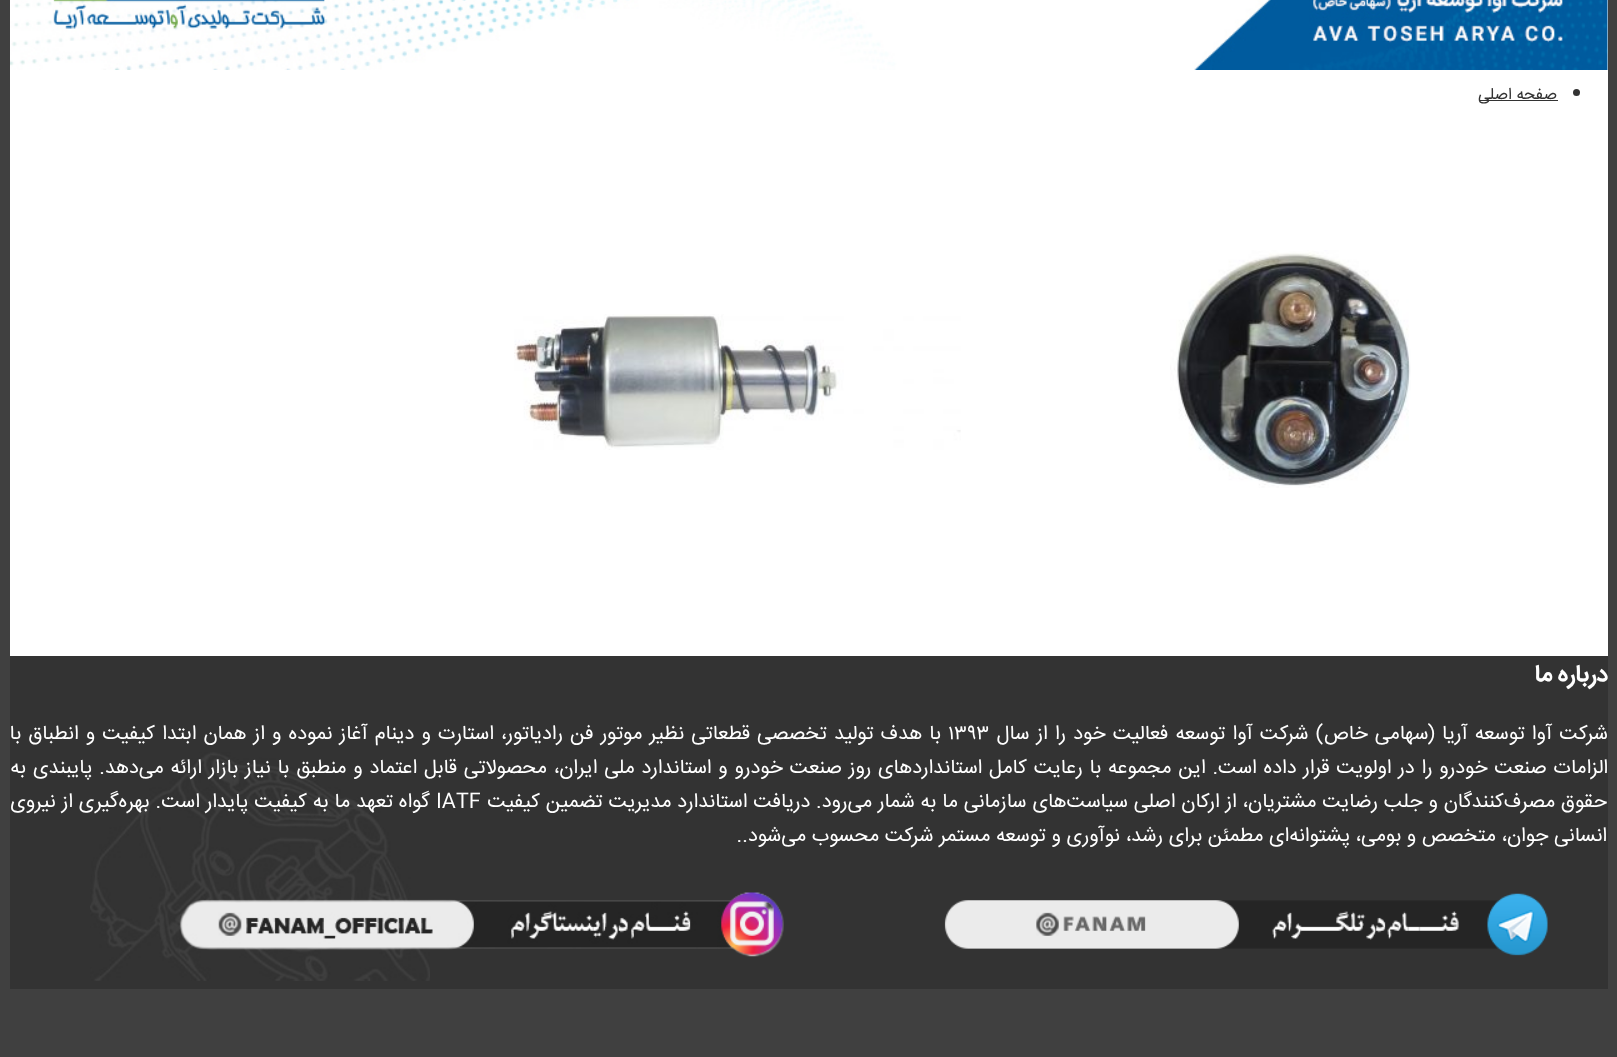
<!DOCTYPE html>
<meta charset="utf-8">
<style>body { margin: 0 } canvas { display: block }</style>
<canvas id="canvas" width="1617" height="1057"></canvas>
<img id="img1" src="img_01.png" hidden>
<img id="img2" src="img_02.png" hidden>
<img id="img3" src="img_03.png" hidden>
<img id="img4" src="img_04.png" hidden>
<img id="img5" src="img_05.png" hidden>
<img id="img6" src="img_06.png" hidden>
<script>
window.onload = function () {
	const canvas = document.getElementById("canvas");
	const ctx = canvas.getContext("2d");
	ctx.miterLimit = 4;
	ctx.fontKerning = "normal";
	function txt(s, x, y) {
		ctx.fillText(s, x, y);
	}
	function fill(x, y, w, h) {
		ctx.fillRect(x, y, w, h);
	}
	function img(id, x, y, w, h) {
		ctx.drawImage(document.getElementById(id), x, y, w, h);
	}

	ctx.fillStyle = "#404040";
	fill(0, 0, 1617, 1057);
	ctx.fillStyle = "#FFFFFF";
	fill(10, 0, 1598, 656);
	img("img1", 10, 0, 1598, 70);
	ctx.fillStyle = "#333333";
	ctx.beginPath();
	ctx.arc(1576.5, 92.5, 3.5, 0, Math.PI * 2);
	ctx.fill();
	fill(1479, 100, 79, 1);
	img("img2", 1170, 250, 241, 238);
	img("img3", 514, 314, 447, 136);
	fill(10, 656, 1598, 333);
	img("img4", 90, 752, 340, 229);
	img("img5", 944, 893, 604, 63);
	img("img6", 179, 892, 605, 65);
	ctx.direction = "rtl";
	ctx.font = "16.25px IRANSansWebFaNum";
	txt("صفحه اصلی", 1557, 99);
	ctx.font = "bold 23.5px IRANSansWebFaNum";
	ctx.fillStyle = "#FFFFFF";
	txt("درباره ما", 1608, 681);
	ctx.wordSpacing = "1.5px";
	ctx.font = "20px IRANSansWebFaNum";
	txt("شرکت آوا توسعه آریا (سهامی خاص) شرکت آوا توسعه فعالیت خود را از سال", 1608, 739);
	ctx.wordSpacing = "0px";
	ctx.direction = "ltr";
	txt("۱۳۹۳", 948, 739);
	ctx.wordSpacing = "1.5px";
	ctx.direction = "rtl";
	txt("با هدف تولید تخصصی قطعاتی نظیر موتور فن رادیاتور، استارت و دینام آغاز نموده و از همان ابتدا کیفیت و انطباق با", 941, 739);
	ctx.wordSpacing = "1.2px";
	txt("الزامات صنعت خودرو را در اولویت قرار داده است. این مجموعه با رعایت کامل استانداردهای روز صنعت خودرو و استاندارد ملی ایران، محصولاتی قابل اعتماد و منطبق با نیاز بازار ارائه می‌دهد. پایبندی به", 1608, 773);
	ctx.wordSpacing = "0.25px";
	txt("حقوق مصرف‌کنندگان و جلب رضایت مشتریان، از ارکان اصلی سیاست‌های سازمانی ما به شمار می‌رود. دریافت استاندارد مدیریت تضمین کیفیت", 1607, 807);
	ctx.wordSpacing = "0px";
	ctx.direction = "ltr";
	txt("IATF", 436, 807);
	ctx.wordSpacing = "0.25px";
	ctx.direction = "rtl";
	txt("گواه تعهد ما به کیفیت پایدار است. بهره‌گیری از نیروی", 430, 807);
	ctx.wordSpacing = "0px";
	txt("انسانی جوان، متخصص و بومی، پشتوانه‌ای مطمئن برای رشد، نوآوری و توسعه مستمر شرکت محسوب می‌شود..", 1607, 841);
};
</script>
